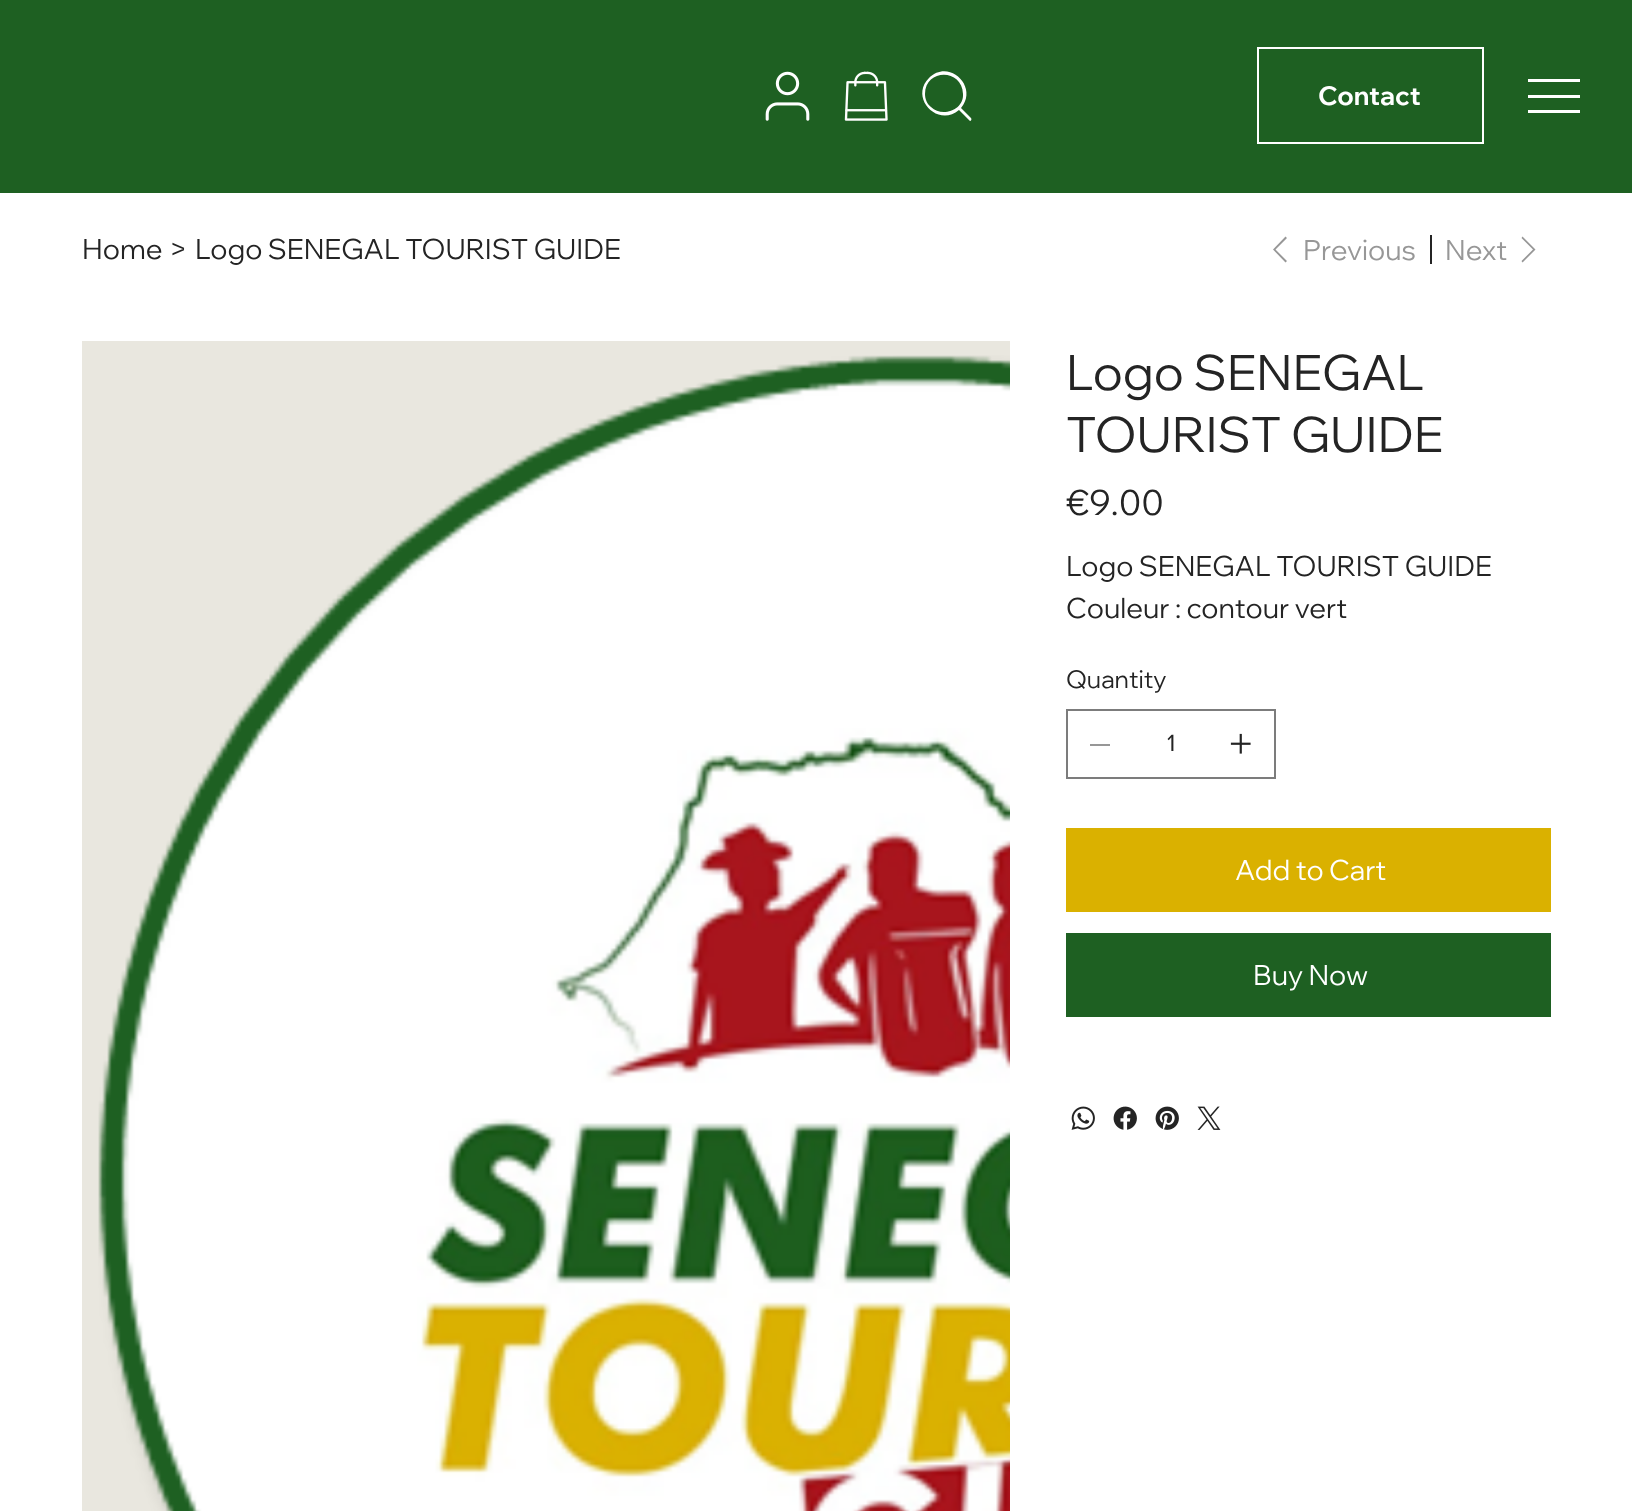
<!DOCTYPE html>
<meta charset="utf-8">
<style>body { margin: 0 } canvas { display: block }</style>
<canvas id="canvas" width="1632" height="1511"></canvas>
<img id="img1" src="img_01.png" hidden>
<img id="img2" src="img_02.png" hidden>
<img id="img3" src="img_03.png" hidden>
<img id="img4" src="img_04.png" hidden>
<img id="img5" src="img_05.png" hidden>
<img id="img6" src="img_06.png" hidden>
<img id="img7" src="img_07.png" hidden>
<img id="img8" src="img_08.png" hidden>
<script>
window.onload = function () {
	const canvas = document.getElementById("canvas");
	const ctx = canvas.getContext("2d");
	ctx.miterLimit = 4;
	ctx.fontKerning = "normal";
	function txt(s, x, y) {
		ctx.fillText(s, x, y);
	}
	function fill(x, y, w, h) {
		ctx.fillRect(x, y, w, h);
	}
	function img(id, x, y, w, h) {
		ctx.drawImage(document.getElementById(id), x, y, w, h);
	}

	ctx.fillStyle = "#1E6022";
	fill(0, 0, 1632, 1511);
	img("img1", 765, 71, 45, 50);
	img("img2", 844, 71, 44, 50);
	ctx.fillStyle = "#FFFFFF";
	ctx.beginPath();
	ctx.moveTo(971, 118);
	ctx.lineTo(961, 108);
	ctx.bezierCurveTo(979, 87, 949, 58, 929, 78);
	ctx.bezierCurveTo(909, 98, 938, 128, 959, 110);
	ctx.lineTo(970, 121);
	ctx.bezierCurveTo(971, 121, 972, 119, 971, 118);
	ctx.closePath();
	ctx.moveTo(925, 94);
	ctx.bezierCurveTo(925, 69, 962, 68, 963, 94);
	ctx.bezierCurveTo(964, 110, 942, 118, 931, 107);
	ctx.bezierCurveTo(927, 104, 925, 99, 925, 94);
	ctx.closePath();
	ctx.fill();
	ctx.strokeStyle = "#FFFFFF";
	ctx.lineWidth = 2;
	ctx.strokeRect(1258, 48, 225, 95);
	fill(1528, 79, 52, 3);
	fill(1528, 95, 52, 3);
	fill(1528, 110, 52, 3);
	fill(0, 193, 1632, 1318);
	ctx.fillStyle = "#979797";
	ctx.beginPath();
	ctx.moveTo(1285.5, 236.5);
	ctx.lineTo(1287, 238);
	ctx.lineTo(1275.5, 249.5);
	ctx.lineTo(1287, 261);
	ctx.lineTo(1285.5, 262.5);
	ctx.lineTo(1273, 249.5);
	ctx.closePath();
	ctx.fill("evenodd");
	ctx.fillStyle = "#242424";
	fill(1430, 235, 2, 29);
	ctx.fillStyle = "#979797";
	ctx.beginPath();
	ctx.moveTo(1522.5, 262.5);
	ctx.lineTo(1521.5, 261);
	ctx.lineTo(1533, 249.5);
	ctx.lineTo(1521.5, 238);
	ctx.lineTo(1522.5, 236.5);
	ctx.lineTo(1535.5, 249.5);
	ctx.closePath();
	ctx.fill("evenodd");
	ctx.fillStyle = "#E9E7DF";
	fill(82, 341, 928, 1170);
	img("img3", 98, 355, 912, 1156);
	ctx.strokeStyle = "#7C7C7C";
	ctx.strokeRect(1067, 710, 208, 68);
	ctx.fillStyle = "#979797";
	fill(1090, 744, 20, 2);
	img("img4", 1230, 733, 21, 21);
	ctx.fillStyle = "#DAB100";
	fill(1066, 828, 485, 84);
	ctx.fillStyle = "#1E6022";
	fill(1066, 933, 485, 84);
	img("img5", 1071, 1106, 24, 24);
	img("img6", 1113, 1106, 24, 24);
	img("img7", 1155, 1106, 24, 24);
	img("img8", 1197, 1106, 24, 24);
	ctx.font = "bold 26px Wix Madefor Display";
	ctx.fillStyle = "#FFFFFF";
	txt("Contact", 1318, 105);
	ctx.font = "28px Wix Madefor Display";
	ctx.fillStyle = "#242424";
	txt("Home", 82, 259);
	txt(">", 169, 259);
	txt("Logo SENEGAL TOURIST GUIDE", 195, 259);
	ctx.fillStyle = "#979797";
	txt("Previous", 1303, 260);
	txt("Next", 1445, 260);
	ctx.font = "49px Wix Madefor Display";
	ctx.fillStyle = "#242424";
	txt("Logo SENEGAL", 1066, 390);
	txt("TOURIST GUIDE", 1066, 452);
	ctx.font = "35px Wix Madefor Display";
	txt("€9.00", 1066, 515);
	ctx.font = "28px Wix Madefor Display";
	txt("Logo SENEGAL TOURIST GUIDE", 1066, 576);
	txt("Couleur : contour vert", 1066, 618);
	ctx.font = "24.5px Wix Madefor Display";
	txt("Quantity", 1066, 688);
	ctx.font = "24.5px 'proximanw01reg'";
	txt("1", 1167, 751);
	ctx.font = "28px Wix Madefor Display";
	ctx.fillStyle = "#FFFFFF";
	txt("Add to Cart", 1235, 880);
	txt("Buy Now", 1253, 985);
};
</script>
